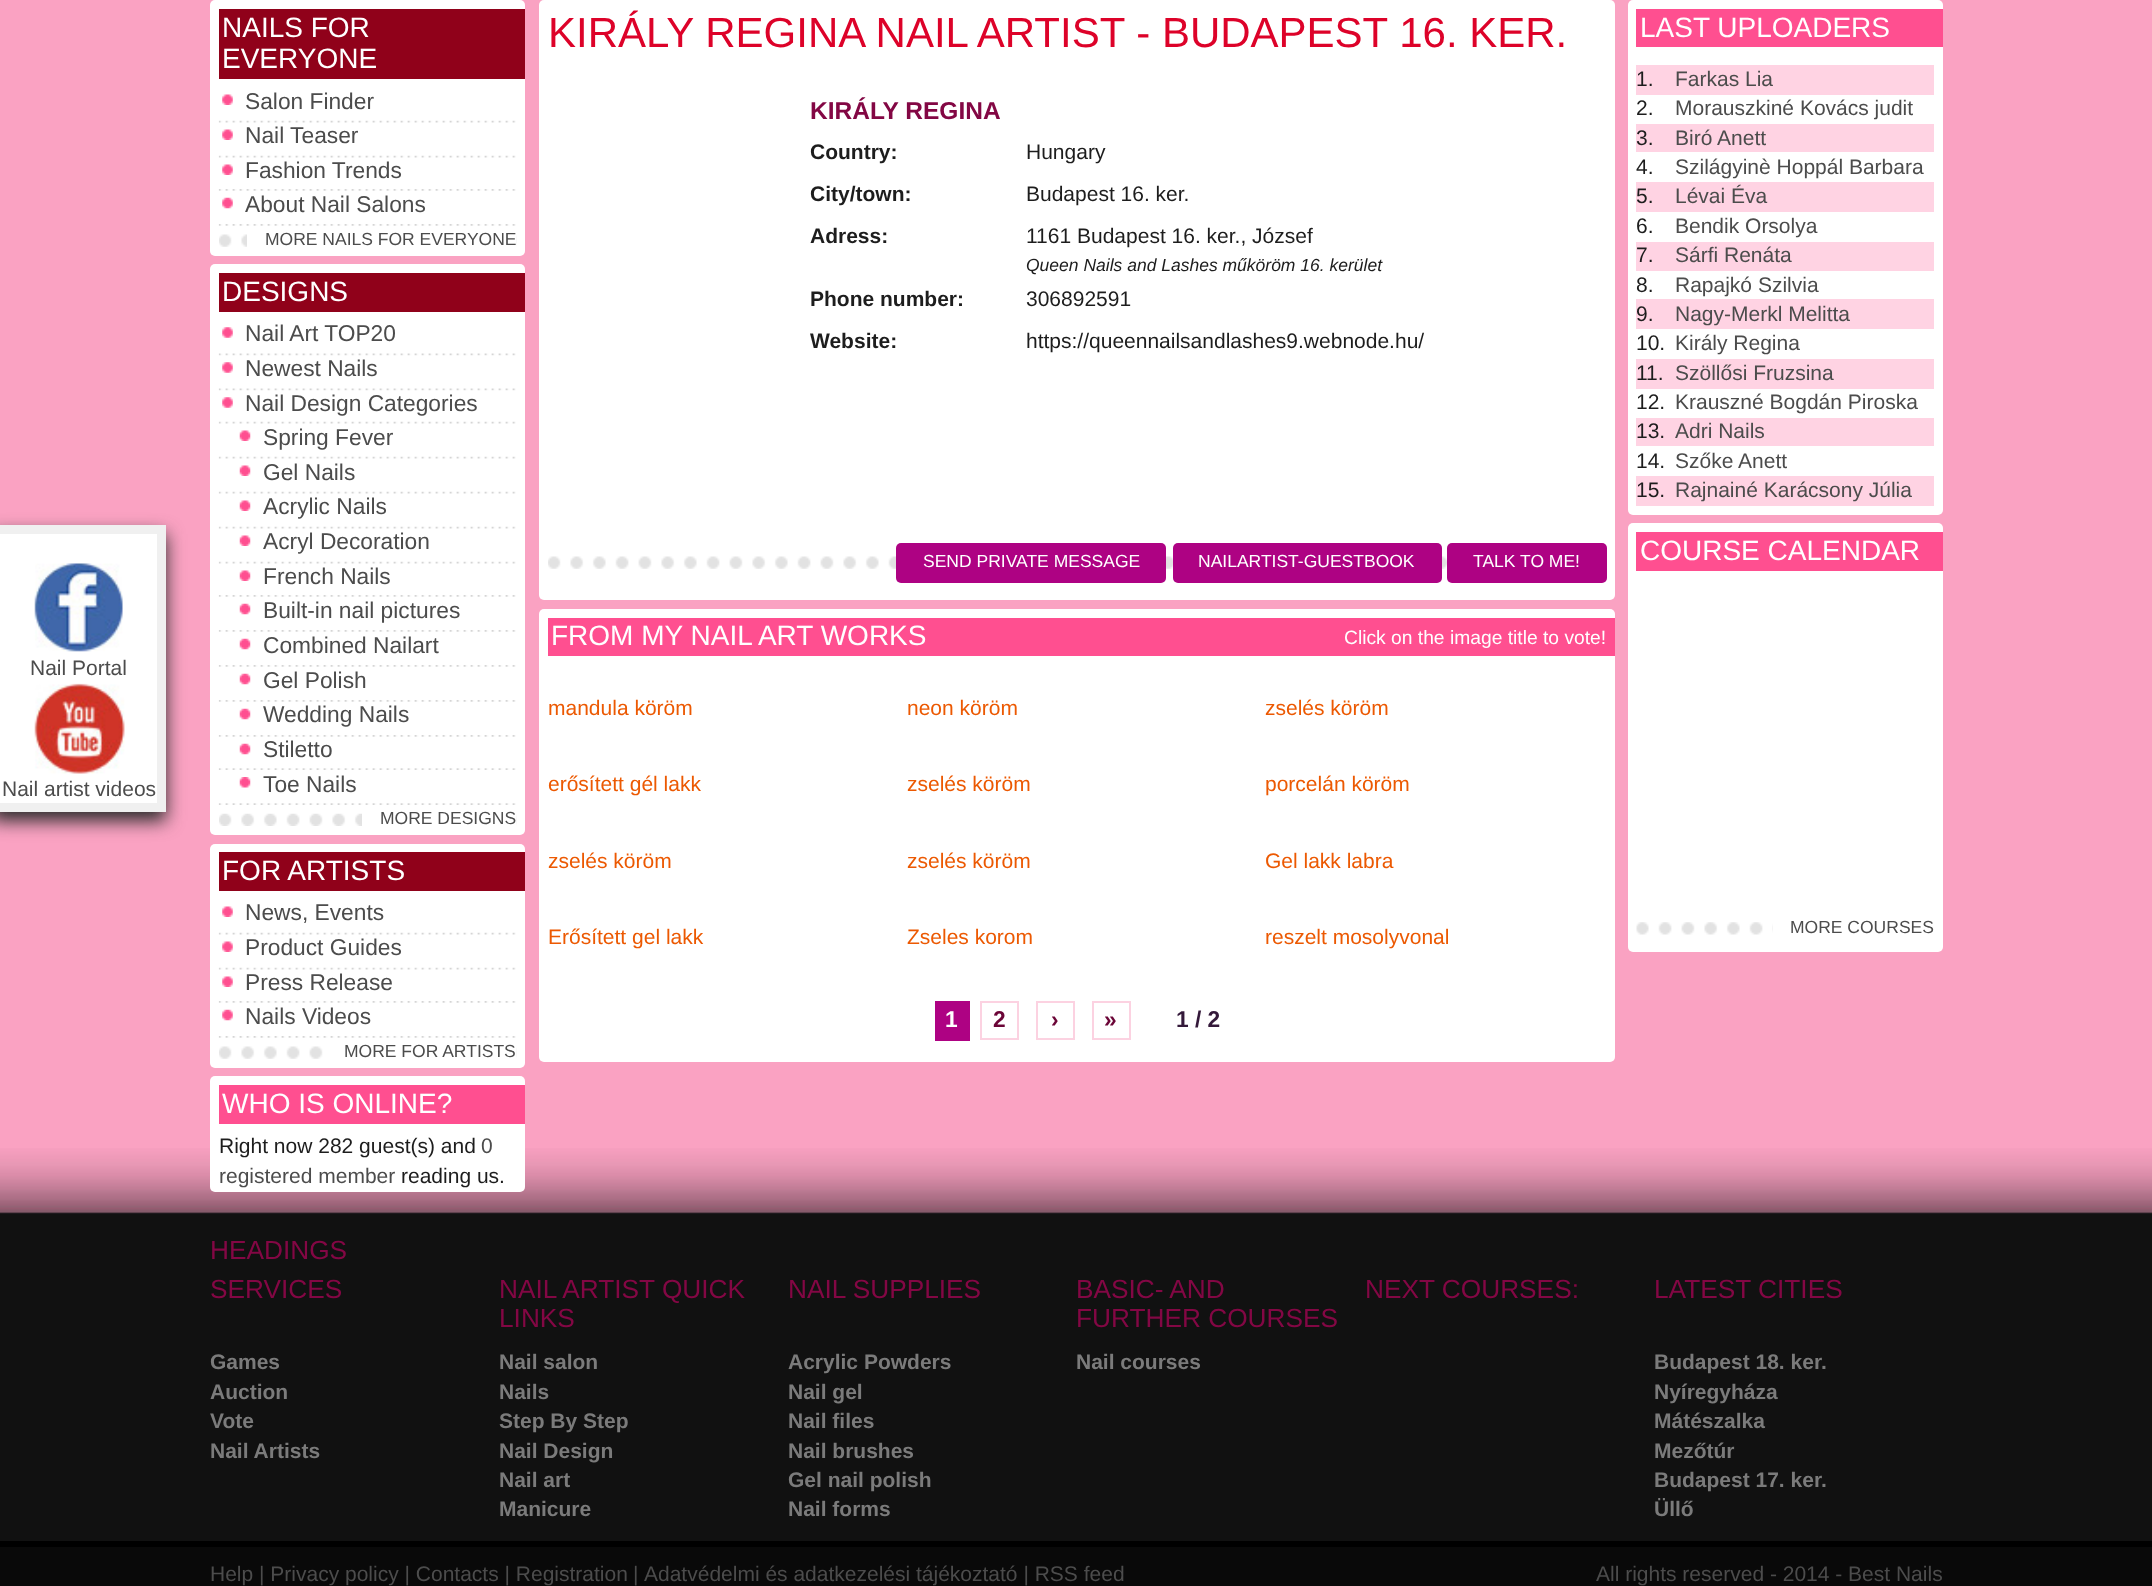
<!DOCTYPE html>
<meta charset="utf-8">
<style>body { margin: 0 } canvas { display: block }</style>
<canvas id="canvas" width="2152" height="1586"></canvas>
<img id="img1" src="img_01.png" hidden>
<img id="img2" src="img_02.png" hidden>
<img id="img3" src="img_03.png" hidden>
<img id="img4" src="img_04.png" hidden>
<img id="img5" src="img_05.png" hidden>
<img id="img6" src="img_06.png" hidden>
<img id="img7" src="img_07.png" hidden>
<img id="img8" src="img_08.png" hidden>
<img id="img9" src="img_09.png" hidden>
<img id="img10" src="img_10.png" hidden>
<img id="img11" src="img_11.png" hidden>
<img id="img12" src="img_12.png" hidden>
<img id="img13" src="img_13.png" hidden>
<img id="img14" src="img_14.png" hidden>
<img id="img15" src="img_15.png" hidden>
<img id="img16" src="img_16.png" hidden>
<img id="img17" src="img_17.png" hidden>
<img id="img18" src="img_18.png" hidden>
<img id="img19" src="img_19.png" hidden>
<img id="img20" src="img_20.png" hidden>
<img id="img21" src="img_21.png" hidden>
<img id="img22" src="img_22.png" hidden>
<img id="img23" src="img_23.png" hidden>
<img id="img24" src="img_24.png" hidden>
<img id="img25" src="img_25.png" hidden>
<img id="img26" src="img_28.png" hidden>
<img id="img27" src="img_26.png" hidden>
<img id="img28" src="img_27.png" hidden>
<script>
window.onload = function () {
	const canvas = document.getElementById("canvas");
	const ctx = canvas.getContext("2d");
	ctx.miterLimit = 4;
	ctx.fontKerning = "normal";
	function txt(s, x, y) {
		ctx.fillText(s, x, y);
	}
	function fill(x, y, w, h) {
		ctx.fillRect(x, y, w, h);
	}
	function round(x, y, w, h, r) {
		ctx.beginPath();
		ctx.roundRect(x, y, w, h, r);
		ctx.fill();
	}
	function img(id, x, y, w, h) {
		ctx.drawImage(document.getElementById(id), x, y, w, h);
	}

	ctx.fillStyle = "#FAA2C2";
	fill(0, 0, 2152, 1586);
	ctx.fillStyle = "#2C2C2C";
	ctx.filter = "blur(9px)";
	ctx.beginPath();
	ctx.rect(-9, 534, 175, 287);
	ctx.fill();
	ctx.filter = "none";
	ctx.fillStyle = "#FFFFFF";
	ctx.beginPath();
	ctx.rect(-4.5, 529.5, 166, 278);
	ctx.fill();
	ctx.strokeStyle = "#F0F0F0";
	ctx.lineWidth = 9;
	ctx.stroke();
	img("img1", 34, 563, 89, 89);
	img("img2", 34, 683, 91, 91);
	round(210, 0, 315, 256, 5);
	ctx.fillStyle = "#90011A";
	fill(219, 9, 306, 70);
	img("img3", 218, 120, 298, 3);
	img("img4", 222, 94, 11, 11);
	img("img5", 218, 155, 298, 3);
	img("img4", 222, 129, 11, 11);
	img("img6", 218, 189, 298, 2);
	img("img4", 222, 164, 11, 11);
	img("img7", 218, 224, 298, 2);
	img("img8", 222, 197, 11, 12);
	img("img9", 219, 234, 298, 13);
	ctx.fillStyle = "#FFFFFF";
	fill(247, 234, 269, 13);
	round(210, 264, 315, 571, 5);
	ctx.fillStyle = "#90011A";
	fill(219, 273, 306, 39);
	img("img10", 218, 353, 298, 3);
	img("img11", 222, 327, 11, 11);
	img("img12", 218, 388, 298, 3);
	img("img11", 222, 362, 11, 11);
	img("img13", 218, 421, 298, 3);
	img("img11", 222, 397, 11, 11);
	img("img14", 218, 456, 298, 3);
	img("img15", 239, 430, 12, 11);
	img("img16", 218, 491, 298, 3);
	img("img15", 239, 465, 12, 11);
	img("img5", 218, 526, 298, 3);
	img("img15", 239, 500, 12, 11);
	img("img13", 218, 561, 298, 3);
	img("img15", 239, 535, 12, 11);
	img("img17", 218, 595, 298, 2);
	img("img15", 239, 570, 12, 11);
	img("img17", 218, 630, 298, 2);
	img("img18", 239, 603, 12, 12);
	img("img17", 218, 665, 298, 2);
	img("img18", 239, 638, 12, 12);
	img("img17", 218, 700, 298, 2);
	img("img18", 239, 673, 12, 12);
	img("img19", 218, 735, 298, 2);
	img("img18", 239, 708, 12, 12);
	img("img20", 218, 768, 298, 2);
	img("img18", 239, 743, 12, 12);
	img("img21", 218, 803, 298, 2);
	img("img22", 239, 777, 12, 11);
	img("img23", 219, 813, 298, 13);
	ctx.fillStyle = "#FFFFFF";
	fill(362, 813, 154, 13);
	round(210, 844, 315, 224, 5);
	ctx.fillStyle = "#90011A";
	fill(219, 852, 306, 39);
	img("img5", 218, 932, 298, 3);
	img("img4", 222, 906, 11, 11);
	img("img14", 218, 967, 298, 3);
	img("img4", 222, 941, 11, 11);
	img("img6", 218, 1001, 298, 2);
	img("img4", 222, 976, 11, 11);
	img("img24", 218, 1036, 298, 2);
	img("img8", 222, 1009, 11, 12);
	img("img25", 219, 1046, 298, 13);
	ctx.fillStyle = "#FFFFFF";
	fill(332, 1046, 184, 13);
	img("img26", 0, 1148, 2152, 66);
	round(210, 1076, 315, 116, 5);
	ctx.fillStyle = "#FF4F90";
	fill(219, 1085, 306, 39);
	ctx.fillStyle = "#FFFFFF";
	round(539, 0, 1076, 600, 5);
	img("img27", 548, 556, 899, 13);
	ctx.fillStyle = "#AE0283";
	round(896, 543, 270, 40, 5);
	round(1173, 543, 269, 40, 5);
	round(1447, 543, 160, 40, 5);
	ctx.fillStyle = "#FFFFFF";
	round(539, 609, 1076, 453, 5);
	ctx.fillStyle = "#FF4F90";
	fill(548, 618, 1067, 38);
	ctx.fillStyle = "#AE0283";
	fill(935, 1001, 35, 40);
	ctx.strokeStyle = "#FCD2E1";
	ctx.lineWidth = 2;
	ctx.strokeRect(981, 1002, 37, 37);
	ctx.strokeRect(1037, 1002, 37, 37);
	ctx.strokeRect(1093, 1002, 37, 37);
	ctx.fillStyle = "#FFFFFF";
	round(1628, 0, 315, 515, 5);
	ctx.fillStyle = "#FF4F90";
	fill(1636, 9, 307, 38);
	ctx.fillStyle = "#FFD3E3";
	fill(1636, 65, 298, 30);
	fill(1636, 124, 298, 28);
	fill(1636, 182, 298, 30);
	fill(1636, 242, 298, 29);
	fill(1636, 299, 298, 30);
	fill(1636, 359, 298, 30);
	fill(1636, 418, 298, 28);
	fill(1636, 476, 298, 30);
	ctx.fillStyle = "#FFFFFF";
	round(1628, 523, 315, 429, 5);
	ctx.fillStyle = "#FF4F90";
	fill(1636, 532, 307, 39);
	img("img28", 1636, 922, 137, 13);
	ctx.fillStyle = "#111111";
	fill(0, 1214, 2152, 327);
	ctx.fillStyle = "#090909";
	fill(0, 1547, 2152, 39);
	ctx.fillStyle = "#000000";
	fill(0, 1541, 2152, 6);
	ctx.font = "21px Liberation Sans";
	ctx.fillStyle = "#4C4C4C";
	txt("Nail Portal", 30, 675);
	txt("Nail artist videos", 2, 796);
	ctx.font = "28px Liberation Sans";
	ctx.fillStyle = "#FFFFFF";
	txt("NAILS FOR", 222, 37);
	txt("EVERYONE", 222, 68);
	ctx.font = "22.75px Liberation Sans";
	ctx.fillStyle = "#4C4C4C";
	txt("Salon Finder", 245, 109);
	txt("Nail Teaser", 245, 143);
	txt("Fashion Trends", 245, 178);
	txt("About Nail Salons", 245, 212);
	ctx.font = "17.5px Liberation Sans";
	txt("MORE NAILS FOR EVERYONE", 265, 245);
	ctx.font = "28px Liberation Sans";
	ctx.fillStyle = "#FFFFFF";
	txt("DESIGNS", 222, 301);
	ctx.font = "22.75px Liberation Sans";
	ctx.fillStyle = "#4C4C4C";
	txt("Nail Art TOP20", 245, 341);
	txt("Newest Nails", 245, 376);
	txt("Nail Design Categories", 245, 411);
	txt("Spring Fever", 263, 445);
	txt("Gel Nails", 263, 480);
	txt("Acrylic Nails", 263, 514);
	txt("Acryl Decoration", 263, 549);
	txt("French Nails", 263, 584);
	txt("Built-in nail pictures", 263, 618);
	txt("Combined Nailart", 263, 653);
	txt("Gel Polish", 263, 688);
	txt("Wedding Nails", 263, 722);
	txt("Stiletto", 263, 757);
	txt("Toe Nails", 263, 792);
	ctx.font = "17.5px Liberation Sans";
	txt("MORE DESIGNS", 380, 824);
	ctx.font = "28px Liberation Sans";
	ctx.fillStyle = "#FFFFFF";
	txt("FOR ARTISTS", 222, 880);
	ctx.font = "22.75px Liberation Sans";
	ctx.fillStyle = "#4C4C4C";
	txt("News, Events", 245, 920);
	txt("Product Guides", 245, 955);
	txt("Press Release", 245, 990);
	txt("Nails Videos", 245, 1024);
	ctx.font = "17.5px Liberation Sans";
	txt("MORE FOR ARTISTS", 344, 1057);
	ctx.font = "28px Liberation Sans";
	ctx.fillStyle = "#FFFFFF";
	txt("WHO IS ONLINE?", 222, 1113);
	ctx.font = "21px Liberation Sans";
	ctx.fillStyle = "#1D1D1D";
	txt("Right now 282 guest(s) and", 219, 1153);
	ctx.fillStyle = "#4C4C4C";
	txt("0", 481, 1153);
	txt("registered member", 219, 1183);
	ctx.fillStyle = "#1D1D1D";
	txt("reading us.", 401, 1183);
	ctx.font = "42px Liberation Sans";
	ctx.fillStyle = "#DD0229";
	txt("KIRÁLY REGINA NAIL ARTIST - BUDAPEST 16. KER.", 548, 47);
	ctx.font = "bold 24.5px Liberation Sans";
	ctx.fillStyle = "#830744";
	txt("KIRÁLY REGINA", 810, 119);
	ctx.font = "bold 21px Liberation Sans";
	ctx.fillStyle = "#1D1D1D";
	txt("Country:", 810, 159);
	ctx.font = "21px Liberation Sans";
	txt("Hungary", 1026, 159);
	ctx.font = "bold 21px Liberation Sans";
	txt("City/town:", 810, 201);
	ctx.font = "21px Liberation Sans";
	txt("Budapest 16. ker.", 1026, 201);
	ctx.font = "bold 21px Liberation Sans";
	txt("Adress:", 810, 243);
	ctx.font = "21px Liberation Sans";
	txt("1161 Budapest 16. ker., József", 1026, 243);
	ctx.font = "italic 17.5px Liberation Sans";
	txt("Queen Nails and Lashes műköröm 16. kerület", 1026, 271);
	ctx.font = "bold 21px Liberation Sans";
	txt("Phone number:", 810, 306);
	ctx.font = "21px Liberation Sans";
	txt("306892591", 1026, 306);
	ctx.font = "bold 21px Liberation Sans";
	txt("Website:", 810, 348);
	ctx.font = "21px Liberation Sans";
	txt("https://queennailsandlashes9.webnode.hu/", 1026, 348);
	ctx.font = "17.5px Liberation Sans";
	ctx.fillStyle = "#FFFFFF";
	txt("SEND PRIVATE MESSAGE", 923, 567);
	txt("NAILARTIST-GUESTBOOK", 1198, 567);
	txt("TALK TO ME!", 1473, 567);
	ctx.font = "28px Liberation Sans";
	txt("FROM MY NAIL ART WORKS", 551, 645);
	ctx.font = "19.25px Liberation Sans";
	txt("Click on the image title to vote!", 1344, 644);
	ctx.font = "21px Liberation Sans";
	ctx.fillStyle = "#EC5902";
	txt("mandula köröm", 548, 715);
	txt("neon köröm", 907, 715);
	txt("zselés köröm", 1265, 715);
	txt("erősített gél lakk", 548, 791);
	txt("zselés köröm", 907, 791);
	txt("porcelán köröm", 1265, 791);
	txt("zselés köröm", 548, 868);
	txt("zselés köröm", 907, 868);
	txt("Gel lakk labra", 1265, 868);
	txt("Erősített gel lakk", 548, 944);
	txt("Zseles korom", 907, 944);
	txt("reszelt mosolyvonal", 1265, 944);
	ctx.font = "bold 22.75px Liberation Sans";
	ctx.fillStyle = "#FFFFFF";
	txt("1", 945, 1027);
	ctx.fillStyle = "#6B0537";
	txt("2", 993, 1027);
	txt("›", 1051, 1027);
	txt("»", 1104, 1027);
	ctx.fillStyle = "#34193A";
	txt("1 / 2", 1176, 1027);
	ctx.font = "28px Liberation Sans";
	ctx.fillStyle = "#FFFFFF";
	txt("LAST UPLOADERS", 1640, 37);
	ctx.font = "21px Liberation Sans";
	ctx.fillStyle = "#1D1D1D";
	txt("1.", 1636, 86);
	ctx.fillStyle = "#4C4C4C";
	txt("Farkas Lia", 1675, 86);
	ctx.fillStyle = "#1D1D1D";
	txt("2.", 1636, 115);
	ctx.fillStyle = "#4C4C4C";
	txt("Morauszkiné Kovács judit", 1675, 115);
	ctx.fillStyle = "#1D1D1D";
	txt("3.", 1636, 145);
	ctx.fillStyle = "#4C4C4C";
	txt("Biró Anett", 1675, 145);
	ctx.fillStyle = "#1D1D1D";
	txt("4.", 1636, 174);
	ctx.fillStyle = "#4C4C4C";
	txt("Szilágyinè Hoppál Barbara", 1675, 174);
	ctx.fillStyle = "#1D1D1D";
	txt("5.", 1636, 203);
	ctx.fillStyle = "#4C4C4C";
	txt("Lévai Éva", 1675, 203);
	ctx.fillStyle = "#1D1D1D";
	txt("6.", 1636, 233);
	ctx.fillStyle = "#4C4C4C";
	txt("Bendik Orsolya", 1675, 233);
	ctx.fillStyle = "#1D1D1D";
	txt("7.", 1636, 262);
	ctx.fillStyle = "#4C4C4C";
	txt("Sárfi Renáta", 1675, 262);
	ctx.fillStyle = "#1D1D1D";
	txt("8.", 1636, 292);
	ctx.fillStyle = "#4C4C4C";
	txt("Rapajkó Szilvia", 1675, 292);
	ctx.fillStyle = "#1D1D1D";
	txt("9.", 1636, 321);
	ctx.fillStyle = "#4C4C4C";
	txt("Nagy-Merkl Melitta", 1675, 321);
	ctx.fillStyle = "#1D1D1D";
	txt("10.", 1636, 350);
	ctx.fillStyle = "#4C4C4C";
	txt("Király Regina", 1675, 350);
	ctx.fillStyle = "#1D1D1D";
	txt("11.", 1636, 380);
	ctx.fillStyle = "#4C4C4C";
	txt("Szöllősi Fruzsina", 1675, 380);
	ctx.fillStyle = "#1D1D1D";
	txt("12.", 1636, 409);
	ctx.fillStyle = "#4C4C4C";
	txt("Krauszné Bogdán Piroska", 1675, 409);
	ctx.fillStyle = "#1D1D1D";
	txt("13.", 1636, 438);
	ctx.fillStyle = "#4C4C4C";
	txt("Adri Nails", 1675, 438);
	ctx.fillStyle = "#1D1D1D";
	txt("14.", 1636, 468);
	ctx.fillStyle = "#4C4C4C";
	txt("Szőke Anett", 1675, 468);
	ctx.fillStyle = "#1D1D1D";
	txt("15.", 1636, 497);
	ctx.fillStyle = "#4C4C4C";
	txt("Rajnainé Karácsony Júlia", 1675, 497);
	ctx.font = "28px Liberation Sans";
	ctx.fillStyle = "#FFFFFF";
	txt("COURSE CALENDAR", 1640, 560);
	ctx.font = "17.5px Liberation Sans";
	ctx.fillStyle = "#4C4C4C";
	txt("MORE COURSES", 1790, 933);
	ctx.font = "26.25px Liberation Sans";
	ctx.fillStyle = "#830744";
	txt("HEADINGS", 210, 1259);
	txt("SERVICES", 210, 1298);
	ctx.font = "bold 21px Liberation Sans";
	ctx.fillStyle = "#7B7B7B";
	txt("Games", 210, 1369);
	txt("Auction", 210, 1399);
	txt("Vote", 210, 1428);
	txt("Nail Artists", 210, 1458);
	ctx.font = "26.25px Liberation Sans";
	ctx.fillStyle = "#830744";
	txt("NAIL ARTIST QUICK", 499, 1298);
	txt("LINKS", 499, 1327);
	ctx.font = "bold 21px Liberation Sans";
	ctx.fillStyle = "#7B7B7B";
	txt("Nail salon", 499, 1369);
	txt("Nails", 499, 1399);
	txt("Step By Step", 499, 1428);
	txt("Nail Design", 499, 1458);
	txt("Nail art", 499, 1487);
	txt("Manicure", 499, 1516);
	ctx.font = "26.25px Liberation Sans";
	ctx.fillStyle = "#830744";
	txt("NAIL SUPPLIES", 788, 1298);
	ctx.font = "bold 21px Liberation Sans";
	ctx.fillStyle = "#7B7B7B";
	txt("Acrylic Powders", 788, 1369);
	txt("Nail gel", 788, 1399);
	txt("Nail files", 788, 1428);
	txt("Nail brushes", 788, 1458);
	txt("Gel nail polish", 788, 1487);
	txt("Nail forms", 788, 1516);
	ctx.font = "26.25px Liberation Sans";
	ctx.fillStyle = "#830744";
	txt("BASIC- AND", 1076, 1298);
	txt("FURTHER COURSES", 1076, 1327);
	ctx.font = "bold 21px Liberation Sans";
	ctx.fillStyle = "#7B7B7B";
	txt("Nail courses", 1076, 1369);
	ctx.font = "26.25px Liberation Sans";
	ctx.fillStyle = "#830744";
	txt("NEXT COURSES:", 1365, 1298);
	txt("LATEST CITIES", 1654, 1298);
	ctx.font = "bold 21px Liberation Sans";
	ctx.fillStyle = "#7B7B7B";
	txt("Budapest 18. ker.", 1654, 1369);
	txt("Nyíregyháza", 1654, 1399);
	txt("Mátészalka", 1654, 1428);
	txt("Mezőtúr", 1654, 1458);
	txt("Budapest 17. ker.", 1654, 1487);
	txt("Üllő", 1654, 1516);
	ctx.font = "21px Liberation Sans";
	ctx.fillStyle = "#4C4C4C";
	txt("Help | Privacy policy | Contacts | Registration", 210, 1581);
	txt("|", 633, 1581);
	txt("Adatvédelmi és adatkezelési tájékoztató | RSS feed", 644, 1581);
	txt("All rights reserved - 2014 - Best Nails", 1596, 1581);
};
</script>
